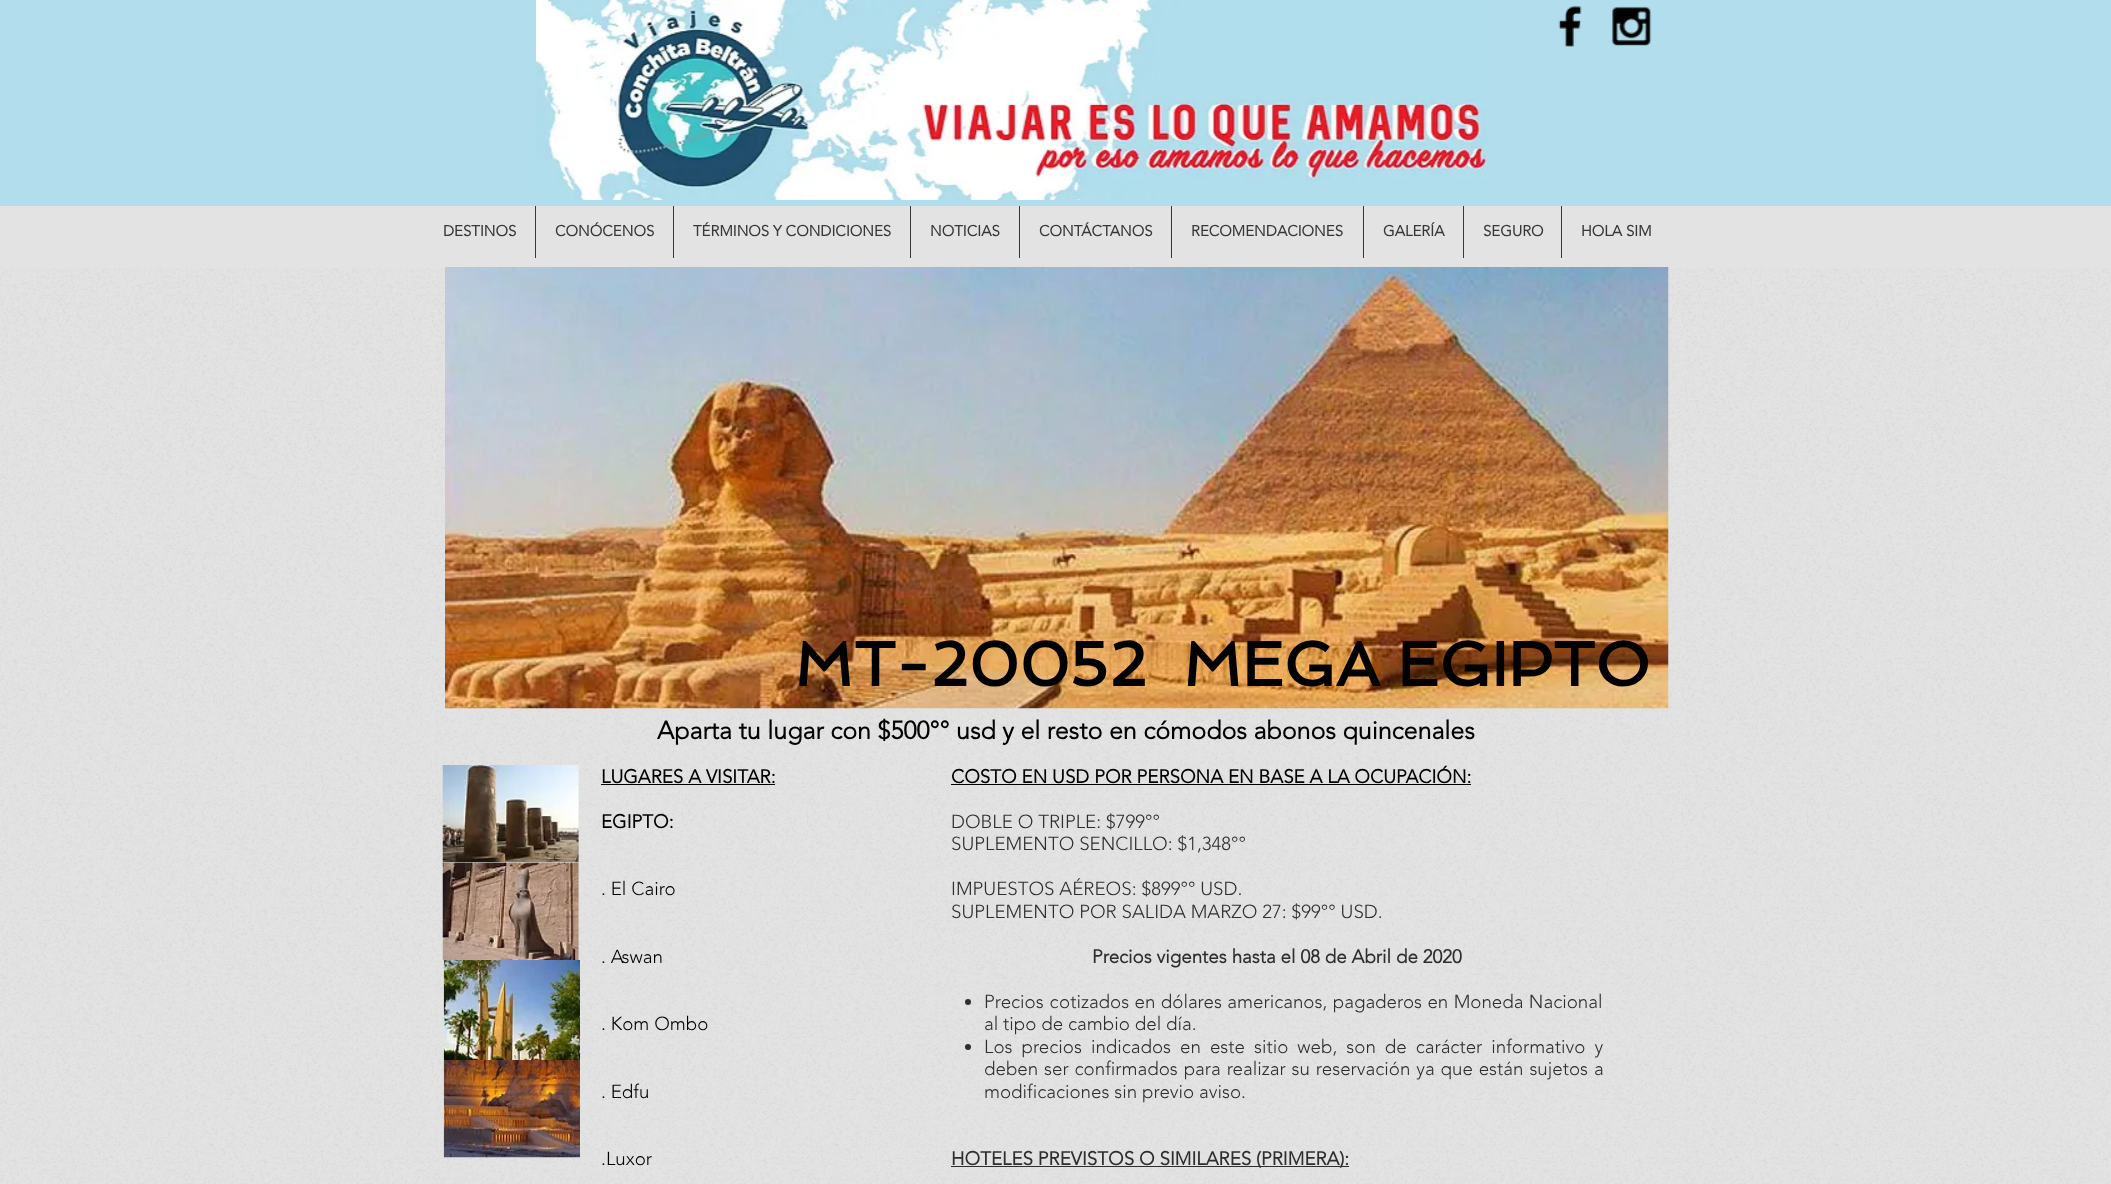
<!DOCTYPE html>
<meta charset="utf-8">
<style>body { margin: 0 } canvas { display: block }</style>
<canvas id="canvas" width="2111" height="1184"></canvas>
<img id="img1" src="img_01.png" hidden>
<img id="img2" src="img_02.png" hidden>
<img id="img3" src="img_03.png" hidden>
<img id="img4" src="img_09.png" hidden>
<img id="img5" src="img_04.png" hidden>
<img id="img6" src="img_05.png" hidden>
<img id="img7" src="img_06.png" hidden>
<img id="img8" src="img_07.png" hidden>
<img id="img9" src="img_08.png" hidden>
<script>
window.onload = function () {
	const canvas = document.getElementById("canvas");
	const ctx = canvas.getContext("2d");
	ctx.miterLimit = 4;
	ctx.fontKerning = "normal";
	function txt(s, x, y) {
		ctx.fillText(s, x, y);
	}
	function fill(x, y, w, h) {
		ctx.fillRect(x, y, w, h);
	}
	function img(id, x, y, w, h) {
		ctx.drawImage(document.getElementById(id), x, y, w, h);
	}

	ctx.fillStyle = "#E3E3E3";
	fill(0, 0, 2111, 1184);
	ctx.fillStyle = "#B1DDEC";
	fill(0, 0, 2111, 206);
	img("img1", 536, 0, 952, 200);
	img("img2", 1558, 6, 24, 41);
	img("img3", 1612, 6, 40, 40);
	ctx.fillStyle = "#393838";
	fill(535, 206, 1, 52);
	fill(673, 206, 1, 52);
	fill(910, 206, 1, 52);
	fill(1019, 206, 1, 52);
	fill(1171, 206, 1, 52);
	fill(1363, 206, 1, 52);
	fill(1463, 206, 1, 52);
	fill(1561, 206, 1, 52);
	img("img4", 0, 268, 2111, 916);
	img("img5", 445, 267, 1224, 442);
	img("img6", 442, 765, 137, 98);
	ctx.fillStyle = "#000000";
	fill(601, 784, 174, 1);
	fill(951, 784, 520, 1);
	ctx.fillStyle = "#2F2E2E";
	ctx.beginPath();
	ctx.arc(968, 1002, 3, 0, Math.PI * 2);
	ctx.fill();
	ctx.beginPath();
	ctx.arc(968, 1047, 3, 0, Math.PI * 2);
	ctx.fill();
	fill(951, 1166, 398, 1);
	img("img7", 442, 862, 137, 98);
	img("img8", 443, 960, 137, 100);
	img("img9", 443, 1060, 137, 98);
	ctx.font = "bold 15px 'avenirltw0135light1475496'";
	ctx.fillStyle = "#393838";
	txt("DESTINOS", 443, 236);
	txt("CONÓCENOS", 555, 236);
	txt("TÉRMINOS Y CONDICIONES", 693, 236);
	txt("NOTICIAS", 930, 236);
	txt("CONTÁCTANOS", 1039, 236);
	txt("RECOMENDACIONES", 1191, 236);
	txt("GALERÍA", 1383, 236);
	txt("SEGURO", 1483, 236);
	txt("HOLA SIM", 1581, 236);
	ctx.font = "bold 62.5px Spinnaker";
	ctx.fillStyle = "#000000";
	txt("MT-20052  MEGA EGIPTO", 794, 686);
	ctx.font = "bold 25px 'avenirltw0135light1475496'";
	txt("Aparta tu lugar con $500°° usd y el resto en cómodos abonos quincenales", 657, 739);
	ctx.font = "bold 18.75px 'avenirltw0135light1475496'";
	txt("LUGARES A VISITAR:", 601, 783);
	txt("EGIPTO:", 601, 828);
	ctx.font = "300 18.75px 'avenirltw0135light1475496'";
	txt(". El Cairo", 601, 895);
	txt(". Aswan", 601, 963);
	txt(". Kom Ombo", 601, 1030);
	txt(". Edfu", 601, 1098);
	txt(".Luxor", 601, 1165);
	ctx.font = "bold 18.75px 'avenirltw0135light1475496'";
	txt("COSTO EN USD POR PERSONA EN BASE A LA OCUPACIÓN:", 951, 783);
	ctx.font = "300 18.75px 'avenirltw0135light1475496'";
	ctx.fillStyle = "#2F2E2E";
	txt("DOBLE O TRIPLE: $799°°", 951, 828);
	txt("SUPLEMENTO SENCILLO: $1,348°°", 951, 850);
	txt("IMPUESTOS AÉREOS: $899°° USD.", 951, 895);
	txt("SUPLEMENTO POR SALIDA MARZO 27: $99°° USD.", 951, 918);
	ctx.font = "bold 18.75px 'avenirltw0135light1475496'";
	txt("Precios vigentes hasta el 08 de Abril de 2020", 1092, 963);
	ctx.wordSpacing = "1px";
	ctx.font = "300 18.75px 'avenirltw0135light1475496'";
	txt("Precios c", 984, 1008);
	ctx.wordSpacing = "0.5px";
	txt("otizados en dólares americanos, pagaderos en Moneda Nacional", 1059, 1008);
	ctx.wordSpacing = "0px";
	txt("al tipo de cambio del día.", 984, 1030);
	ctx.wordSpacing = "4.1px";
	txt("Los precios indicados en este sitio web, son de carácter informativo y", 984, 1053);
	ctx.wordSpacing = "1px";
	txt("deben ser confirmados para realizar su reservación ya que están sujetos a", 984, 1075);
	ctx.wordSpacing = "0px";
	txt("modificaciones sin previo aviso.", 984, 1098);
	ctx.font = "bold 18.75px 'avenirltw0135light1475496'";
	txt("HOTELES PREVISTOS O SIMILARES (PRIMERA):", 951, 1165);
};
</script>
